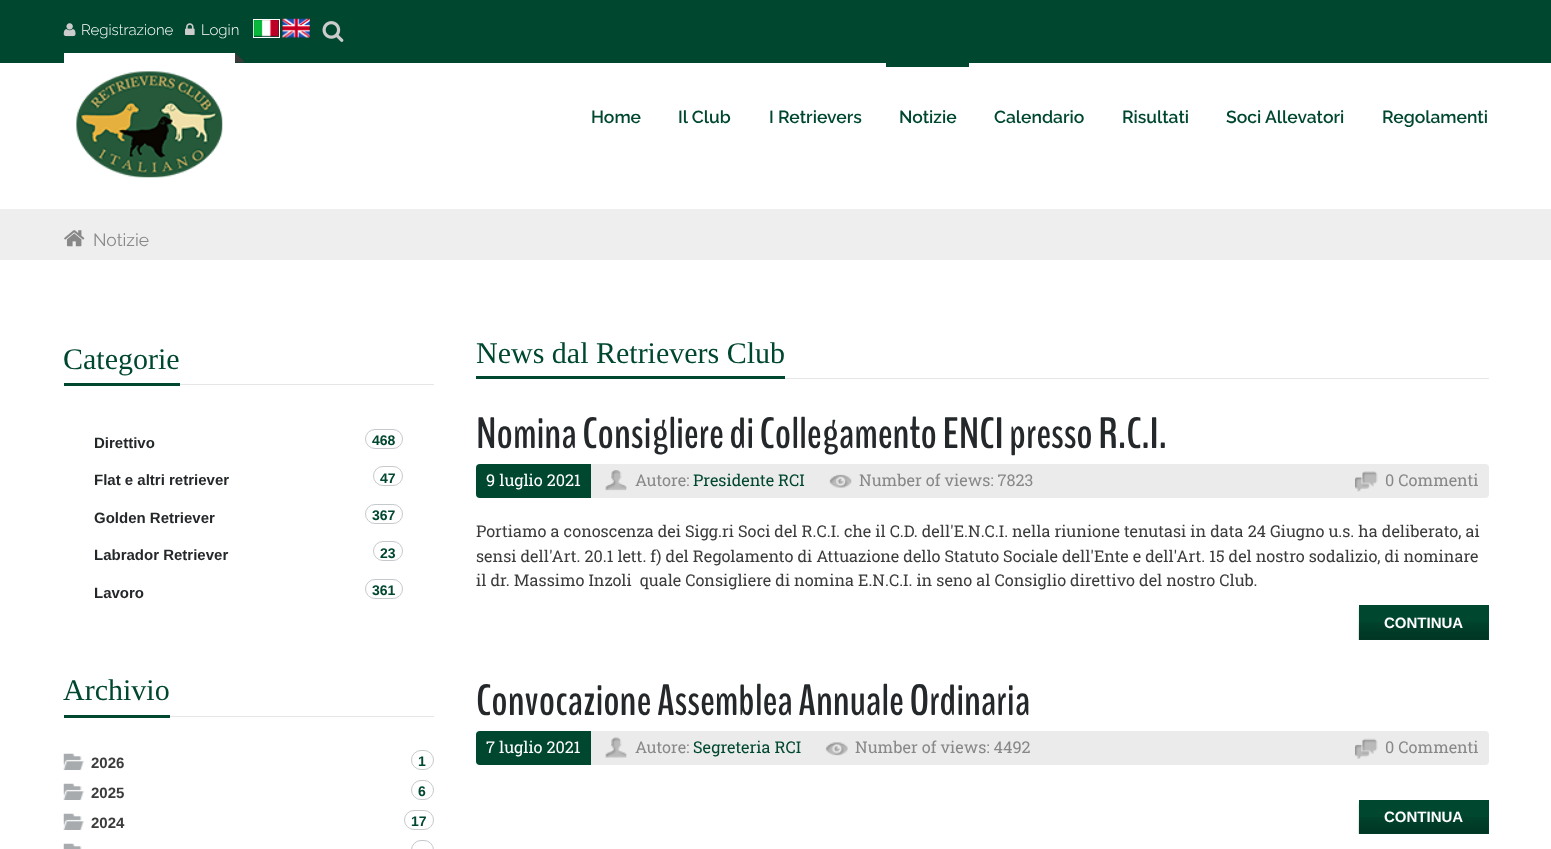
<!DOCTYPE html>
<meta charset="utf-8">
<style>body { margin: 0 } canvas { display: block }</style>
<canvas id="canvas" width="1551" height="849"></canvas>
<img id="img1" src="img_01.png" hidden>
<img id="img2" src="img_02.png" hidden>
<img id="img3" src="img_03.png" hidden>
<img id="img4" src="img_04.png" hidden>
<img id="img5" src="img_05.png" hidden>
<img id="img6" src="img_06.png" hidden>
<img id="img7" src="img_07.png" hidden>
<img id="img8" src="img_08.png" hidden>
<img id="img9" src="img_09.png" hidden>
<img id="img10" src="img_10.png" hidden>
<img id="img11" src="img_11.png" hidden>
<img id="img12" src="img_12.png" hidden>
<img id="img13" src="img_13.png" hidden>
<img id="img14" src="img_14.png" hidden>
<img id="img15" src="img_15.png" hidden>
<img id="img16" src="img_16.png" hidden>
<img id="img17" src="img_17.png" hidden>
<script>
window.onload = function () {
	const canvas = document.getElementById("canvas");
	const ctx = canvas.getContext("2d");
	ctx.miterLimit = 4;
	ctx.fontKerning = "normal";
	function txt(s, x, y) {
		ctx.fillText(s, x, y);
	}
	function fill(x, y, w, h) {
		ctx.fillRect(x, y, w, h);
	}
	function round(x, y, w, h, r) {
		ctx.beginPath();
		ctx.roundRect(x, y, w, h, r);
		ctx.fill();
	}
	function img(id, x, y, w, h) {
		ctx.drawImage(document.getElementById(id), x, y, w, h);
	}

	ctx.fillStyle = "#FFFFFF";
	fill(0, 0, 1551, 849);
	ctx.fillStyle = "#00472F";
	fill(0, 0, 1551, 63);
	img("img1", 63, 23, 13, 14);
	img("img2", 185, 23, 10, 12);
	ctx.strokeStyle = "#FFFFFF";
	ctx.strokeRect(253.5, 19.5, 26, 18);
	img("img3", 282, 18, 28, 20);
	img("img4", 253, 20, 26, 17);
	ctx.fillStyle = "#0F4130";
	fill(315, 19, 1, 25);
	img("img5", 322, 21, 22, 21);
	ctx.fillStyle = "#FFFFFF";
	ctx.beginPath();
	ctx.roundRect(64, 53, 171, 143, [0, 0, 5, 5]);
	ctx.fill();
	ctx.fillStyle = "#3A3A3A";
	ctx.beginPath();
	ctx.moveTo(245, 62.5);
	ctx.lineTo(235, 62.5);
	ctx.lineTo(235, 52.5);
	ctx.closePath();
	ctx.fill();
	img("img6", 76, 71, 147, 107);
	ctx.fillStyle = "#00472F";
	fill(886, 63, 83, 4);
	ctx.fillStyle = "#EEEEEE";
	fill(0, 209, 1551, 51);
	img("img7", 64, 230, 21, 17);
	ctx.fillStyle = "#E5E7E6";
	fill(180, 384, 254, 1);
	ctx.fillStyle = "#00472F";
	fill(64, 383, 116, 3);
	ctx.beginPath();
	ctx.roundRect(365.5, 429.5, 37, 19, 9.5);
	ctx.strokeStyle = "#C6C9CB";
	ctx.stroke();
	ctx.beginPath();
	ctx.roundRect(373.5, 466.5, 29, 19, 9.5);
	ctx.stroke();
	ctx.beginPath();
	ctx.roundRect(365.5, 504.5, 37, 19, 9.5);
	ctx.stroke();
	ctx.beginPath();
	ctx.roundRect(373.5, 541.5, 29, 19, 9.5);
	ctx.stroke();
	ctx.beginPath();
	ctx.roundRect(365.5, 579.5, 37, 19, 9.5);
	ctx.stroke();
	ctx.fillStyle = "#E5E7E6";
	fill(170, 716, 264, 1);
	ctx.fillStyle = "#00472F";
	fill(64, 715, 106, 3);
	img("img8", 63, 753, 21, 17);
	ctx.beginPath();
	ctx.roundRect(411.5, 750.5, 22, 19, 9.5);
	ctx.stroke();
	img("img8", 63, 783, 21, 17);
	ctx.beginPath();
	ctx.roundRect(411.5, 780.5, 22, 19, 9.5);
	ctx.stroke();
	img("img8", 63, 813, 21, 17);
	ctx.beginPath();
	ctx.roundRect(404.5, 810.5, 29, 19, 9.5);
	ctx.stroke();
	img("img9", 63, 843, 19, 6);
	ctx.beginPath();
	ctx.roundRect(411.5, 840.5, 22, 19, 9.5);
	ctx.stroke();
	ctx.fillStyle = "#E5E7E6";
	fill(785, 378, 704, 1);
	ctx.fillStyle = "#00472F";
	fill(476, 376, 309, 3);
	ctx.fillStyle = "#EBEBEB";
	round(476, 464, 1013, 34, 4);
	ctx.fillStyle = "#00472F";
	ctx.beginPath();
	ctx.roundRect(476, 464, 115, 34, [4, 0, 0, 4]);
	ctx.fill();
	img("img10", 605, 470, 22, 21);
	img("img11", 829, 474, 23, 14);
	img("img12", 1355, 471, 23, 21);
	ctx.save();
	ctx.beginPath();
	ctx.rect(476, 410, 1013, 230);
	ctx.clip();
	ctx.fillStyle = "rgba(0, 0, 0, 0.2)";
	ctx.filter = "blur(1px)";
	ctx.beginPath();
	ctx.rect(1359, 608, 130, 35);
	ctx.fill();
	ctx.filter = "none";
	ctx.restore();
	fill(1359, 605, 130, 35);
	img("img13", 1358, 622, 131, 18);
	ctx.fillStyle = "#EBEBEB";
	round(476, 731, 1013, 34, 4);
	ctx.fillStyle = "#00472F";
	ctx.beginPath();
	ctx.roundRect(476, 731, 115, 34, [4, 0, 0, 4]);
	ctx.fill();
	img("img14", 605, 737, 22, 21);
	img("img15", 825, 742, 23, 14);
	img("img16", 1355, 738, 23, 21);
	ctx.save();
	ctx.beginPath();
	ctx.rect(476, 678, 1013, 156);
	ctx.clip();
	ctx.fillStyle = "rgba(0, 0, 0, 0.2)";
	ctx.filter = "blur(1px)";
	ctx.beginPath();
	ctx.rect(1359, 803, 130, 33);
	ctx.fill();
	ctx.filter = "none";
	ctx.restore();
	fill(1359, 800, 130, 34);
	img("img17", 1358, 817, 131, 17);
	ctx.font = "300 15px Raleway";
	ctx.fillStyle = "#FFFFFF";
	txt("Registrazione", 81, 35);
	txt("Login", 201, 35);
	ctx.font = "600 17.5px Raleway";
	ctx.fillStyle = "#00472F";
	txt("Home", 591, 123);
	txt("Il Club", 678, 123);
	txt("I Retrievers", 769, 123);
	txt("Notizie", 899, 123);
	txt("Calendario", 994, 123);
	txt("Risultati", 1122, 123);
	txt("Soci Allevatori", 1226, 123);
	txt("Regolamenti", 1382, 123);
	ctx.font = "17.5px Raleway";
	ctx.fillStyle = "#888888";
	txt("Notizie", 93, 246);
	ctx.font = "30px Liberation Serif";
	ctx.fillStyle = "#00472F";
	txt("Categorie", 63, 369);
	ctx.font = "bold 15px Liberation Sans";
	ctx.fillStyle = "#25282A";
	txt("Direttivo", 94, 448);
	ctx.font = "bold 14px Liberation Sans";
	ctx.fillStyle = "#00472F";
	txt("468", 372, 445);
	ctx.font = "bold 15px Liberation Sans";
	ctx.fillStyle = "#25282A";
	txt("Flat e altri retriever", 94, 485);
	ctx.font = "bold 14px Liberation Sans";
	ctx.fillStyle = "#00472F";
	txt("47", 380, 483);
	ctx.font = "bold 15px Liberation Sans";
	ctx.fillStyle = "#25282A";
	txt("Golden Retriever", 94, 523);
	ctx.font = "bold 14px Liberation Sans";
	ctx.fillStyle = "#00472F";
	txt("367", 372, 520);
	ctx.font = "bold 15px Liberation Sans";
	ctx.fillStyle = "#25282A";
	txt("Labrador Retriever", 94, 560);
	ctx.font = "bold 14px Liberation Sans";
	ctx.fillStyle = "#00472F";
	txt("23", 380, 558);
	ctx.font = "bold 15px Liberation Sans";
	ctx.fillStyle = "#25282A";
	txt("Lavoro", 94, 598);
	ctx.font = "bold 14px Liberation Sans";
	ctx.fillStyle = "#00472F";
	txt("361", 372, 595);
	ctx.font = "30px Liberation Serif";
	txt("Archivio", 63, 700);
	ctx.font = "bold 15px Liberation Sans";
	ctx.fillStyle = "#3C3C3C";
	txt("2026", 91, 768);
	ctx.font = "bold 14px Liberation Sans";
	ctx.fillStyle = "#00472F";
	txt("1", 418, 766);
	ctx.font = "bold 15px Liberation Sans";
	ctx.fillStyle = "#3C3C3C";
	txt("2025", 91, 798);
	ctx.font = "bold 14px Liberation Sans";
	ctx.fillStyle = "#00472F";
	txt("6", 418, 796);
	ctx.font = "bold 15px Liberation Sans";
	ctx.fillStyle = "#3C3C3C";
	txt("2024", 91, 828);
	ctx.font = "bold 14px Liberation Sans";
	ctx.fillStyle = "#00472F";
	txt("17", 411, 826);
	ctx.font = "30px Liberation Serif";
	txt("News dal Retrievers Club", 476, 363);
	ctx.font = "bold 43.75px BenchNine";
	ctx.fillStyle = "#25282A";
	txt("Nomina Consigliere di Collegamento ENCI presso R.C.I.", 476, 448);
	ctx.font = "16.25px Roboto Slab";
	ctx.fillStyle = "#FFFFFF";
	txt("9 luglio 2021", 486, 486);
	ctx.fillStyle = "#888888";
	txt("Autore:", 635, 486);
	ctx.fillStyle = "#00472F";
	txt("Presidente RCI", 693, 486);
	ctx.fillStyle = "#888888";
	txt("Number of views: 7823", 859, 486);
	txt("0 Commenti", 1385, 486);
	ctx.fillStyle = "#3C3C3C";
	txt("Portiamo a conoscenza dei Sigg.ri Soci del R.C.I. che il C.D. dell'E.N.C.I. nella riunione tenutasi in data 24 Giugno u.s. ha deliberato, ai", 476, 537);
	txt("sensi dell'Art. 20.1 lett. f) del Regolamento di Attuazione dello Statuto Sociale dell'Ente e dell'Art. 15 del nostro sodalizio, di nominare", 476, 562);
	txt("il dr. Massimo Inzoli  quale Consigliere di nomina E.N.C.I. in seno al Consiglio direttivo del nostro Club.", 476, 586);
	ctx.font = "bold 15px Liberation Sans";
	ctx.fillStyle = "#FFFFFF";
	txt("CONTINUA", 1384, 628);
	ctx.font = "bold 43.75px BenchNine";
	ctx.fillStyle = "#25282A";
	txt("Convocazione Assemblea Annuale Ordinaria", 476, 715);
	ctx.font = "16.25px Roboto Slab";
	ctx.fillStyle = "#FFFFFF";
	txt("7 luglio 2021", 486, 753);
	ctx.fillStyle = "#888888";
	txt("Autore:", 635, 753);
	ctx.fillStyle = "#00472F";
	txt("Segreteria RCI", 693, 753);
	ctx.fillStyle = "#888888";
	txt("Number of views: 4492", 855, 753);
	txt("0 Commenti", 1385, 753);
	ctx.font = "bold 15px Liberation Sans";
	ctx.fillStyle = "#FFFFFF";
	txt("CONTINUA", 1384, 822);
};
</script>
